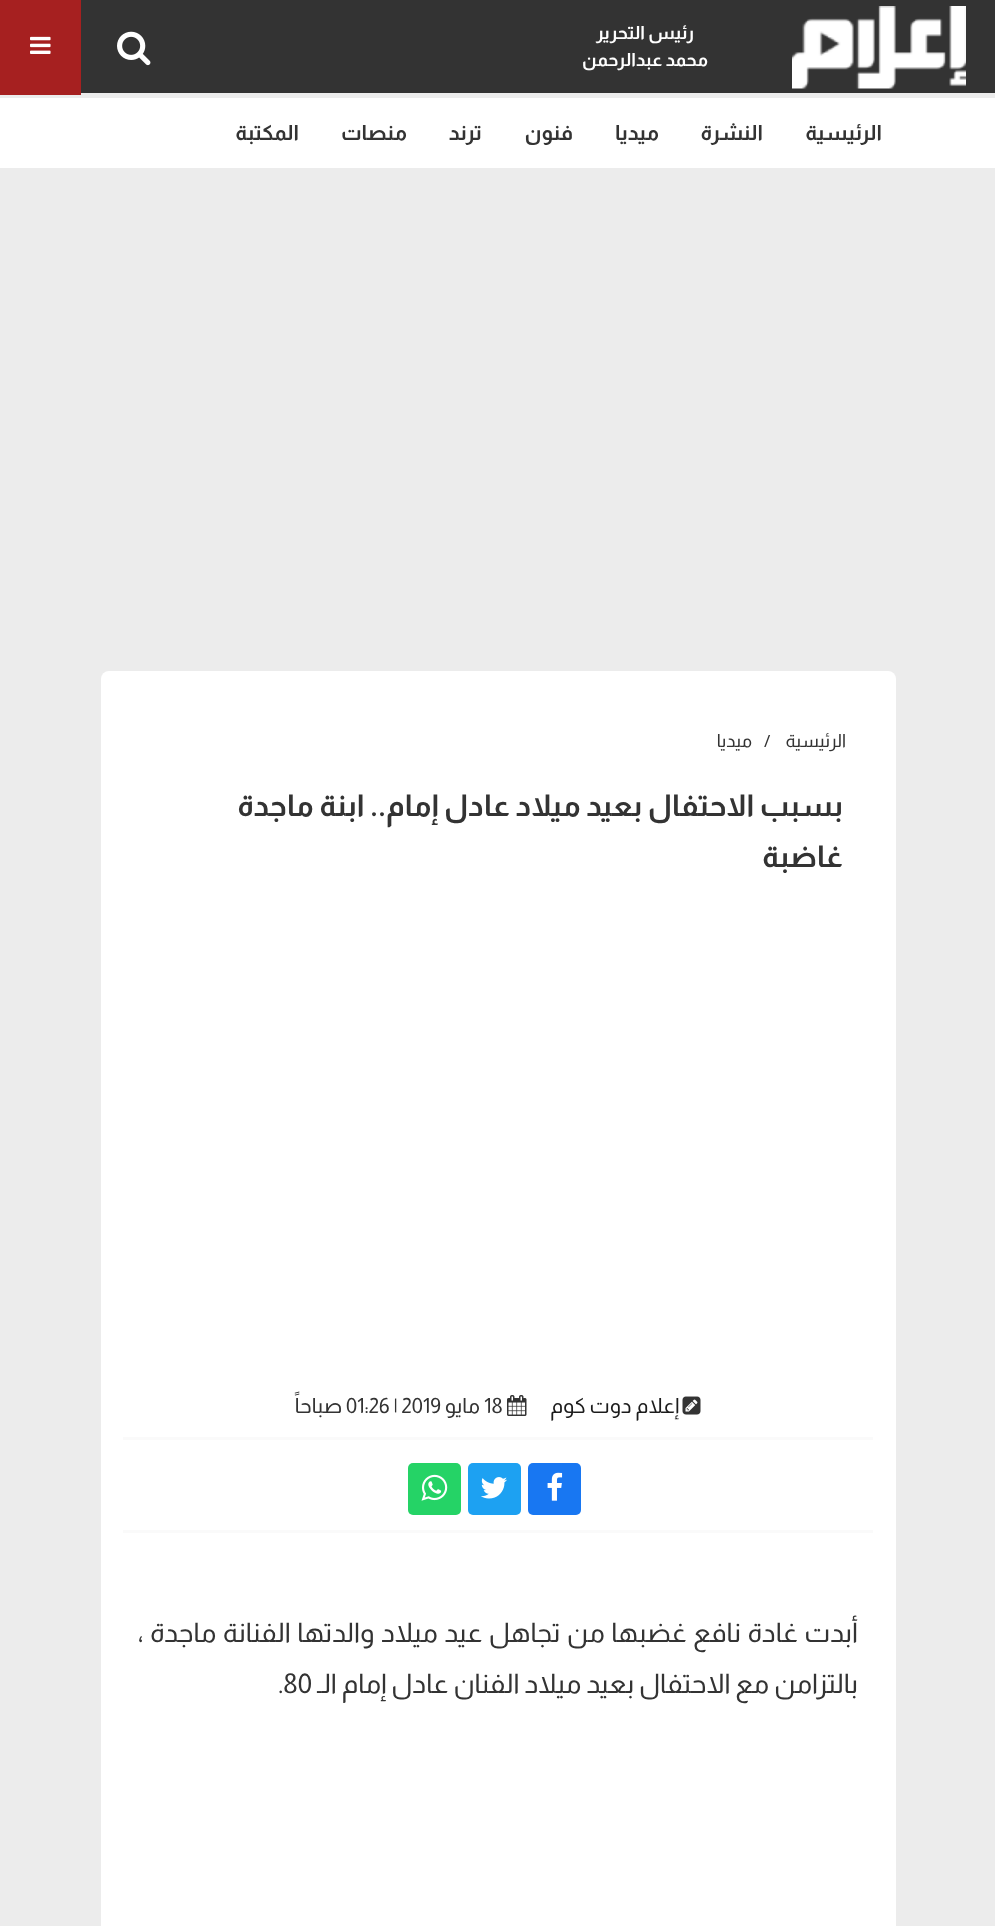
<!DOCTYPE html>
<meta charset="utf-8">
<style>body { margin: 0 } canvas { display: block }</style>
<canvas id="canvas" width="995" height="1926"></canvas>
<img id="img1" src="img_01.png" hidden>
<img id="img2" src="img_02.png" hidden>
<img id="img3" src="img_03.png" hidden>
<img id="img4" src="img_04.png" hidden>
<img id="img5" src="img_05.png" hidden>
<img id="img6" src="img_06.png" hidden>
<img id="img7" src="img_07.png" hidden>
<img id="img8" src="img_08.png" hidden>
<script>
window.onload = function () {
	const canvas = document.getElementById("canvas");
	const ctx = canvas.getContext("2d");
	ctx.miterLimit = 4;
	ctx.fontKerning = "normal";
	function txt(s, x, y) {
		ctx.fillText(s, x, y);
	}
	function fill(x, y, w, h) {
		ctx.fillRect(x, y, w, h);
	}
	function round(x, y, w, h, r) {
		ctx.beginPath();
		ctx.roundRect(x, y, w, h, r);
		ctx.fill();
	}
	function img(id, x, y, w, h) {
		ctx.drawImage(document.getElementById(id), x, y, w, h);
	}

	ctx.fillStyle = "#ECECEC";
	fill(0, 0, 995, 1926);
	ctx.fillStyle = "#333333";
	fill(81, 0, 914, 93);
	img("img1", 792, 6, 174, 83);
	img("img2", 117, 31, 34, 35);
	ctx.fillStyle = "#A62020";
	fill(0, 0, 81, 95);
	img("img3", 30, 36, 21, 18);
	ctx.fillStyle = "#FFFFFF";
	fill(0, 98, 995, 70);
	round(101, 671, 795, 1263, 8);
	ctx.fillStyle = "#FAFAFA";
	fill(123, 1437, 750, 3);
	img("img4", 682, 1396, 19, 19);
	img("img5", 507, 1395, 20, 21);
	fill(123, 1530, 750, 3);
	ctx.fillStyle = "#1877F2";
	round(528, 1463, 53, 52, 5);
	img("img6", 547, 1472, 16, 29);
	ctx.fillStyle = "#1DA1F2";
	round(468, 1463, 53, 52, 5);
	img("img7", 481, 1477, 26, 22);
	ctx.fillStyle = "#25D366";
	round(408, 1463, 53, 52, 5);
	img("img8", 421, 1474, 27, 27);
	ctx.direction = "rtl";
	ctx.font = "bold 18px Almarai";
	ctx.fillStyle = "#FFFFFF";
	txt("رئيس التحرير", 694, 39);
	txt("محمد عبدالرحمن", 708, 66);
	ctx.font = "bold 21px Almarai";
	ctx.fillStyle = "#333333";
	txt("الرئيسية", 882, 140);
	txt("النشرة", 763, 140);
	txt("ميديا", 659, 140);
	txt("فنون", 573, 140);
	txt("ترند", 482, 140);
	txt("منصات", 407, 140);
	txt("المكتبة", 299, 140);
	ctx.font = "18px Almarai";
	txt("الرئيسية", 846, 747);
	ctx.direction = "ltr";
	txt("/", 764, 747);
	ctx.direction = "rtl";
	txt("ميديا", 752, 747);
	ctx.font = "bold 30px Almarai";
	txt("بسبب الاحتفال بعيد ميلاد عادل إمام.. ابنة ماجدة", 843, 816);
	txt("غاضبة", 843, 867);
	ctx.font = "21px Almarai";
	ctx.fillStyle = "#1C1C1C";
	txt("إعلام دوت كوم", 679, 1413);
	ctx.direction = "ltr";
	ctx.fillStyle = "#333333";
	txt("18", 484, 1413);
	ctx.direction = "rtl";
	txt("مايو", 480, 1413);
	ctx.direction = "ltr";
	txt("01:26 | 2019", 346, 1413);
	ctx.direction = "rtl";
	txt("صباحاً", 342, 1413);
	ctx.wordSpacing = "1.5px";
	ctx.font = "27px Almarai";
	txt("أبدت غادة نافع غضبها من تجاهل عيد ميلاد والدتها الفنانة ماجدة ،", 858, 1642);
	ctx.wordSpacing = "0px";
	txt("بالتزامن مع الاحتفال بعيد ميلاد الفنان عادل إمام الـ", 858, 1693);
	ctx.direction = "ltr";
	txt(".80", 278, 1693);
};
</script>
